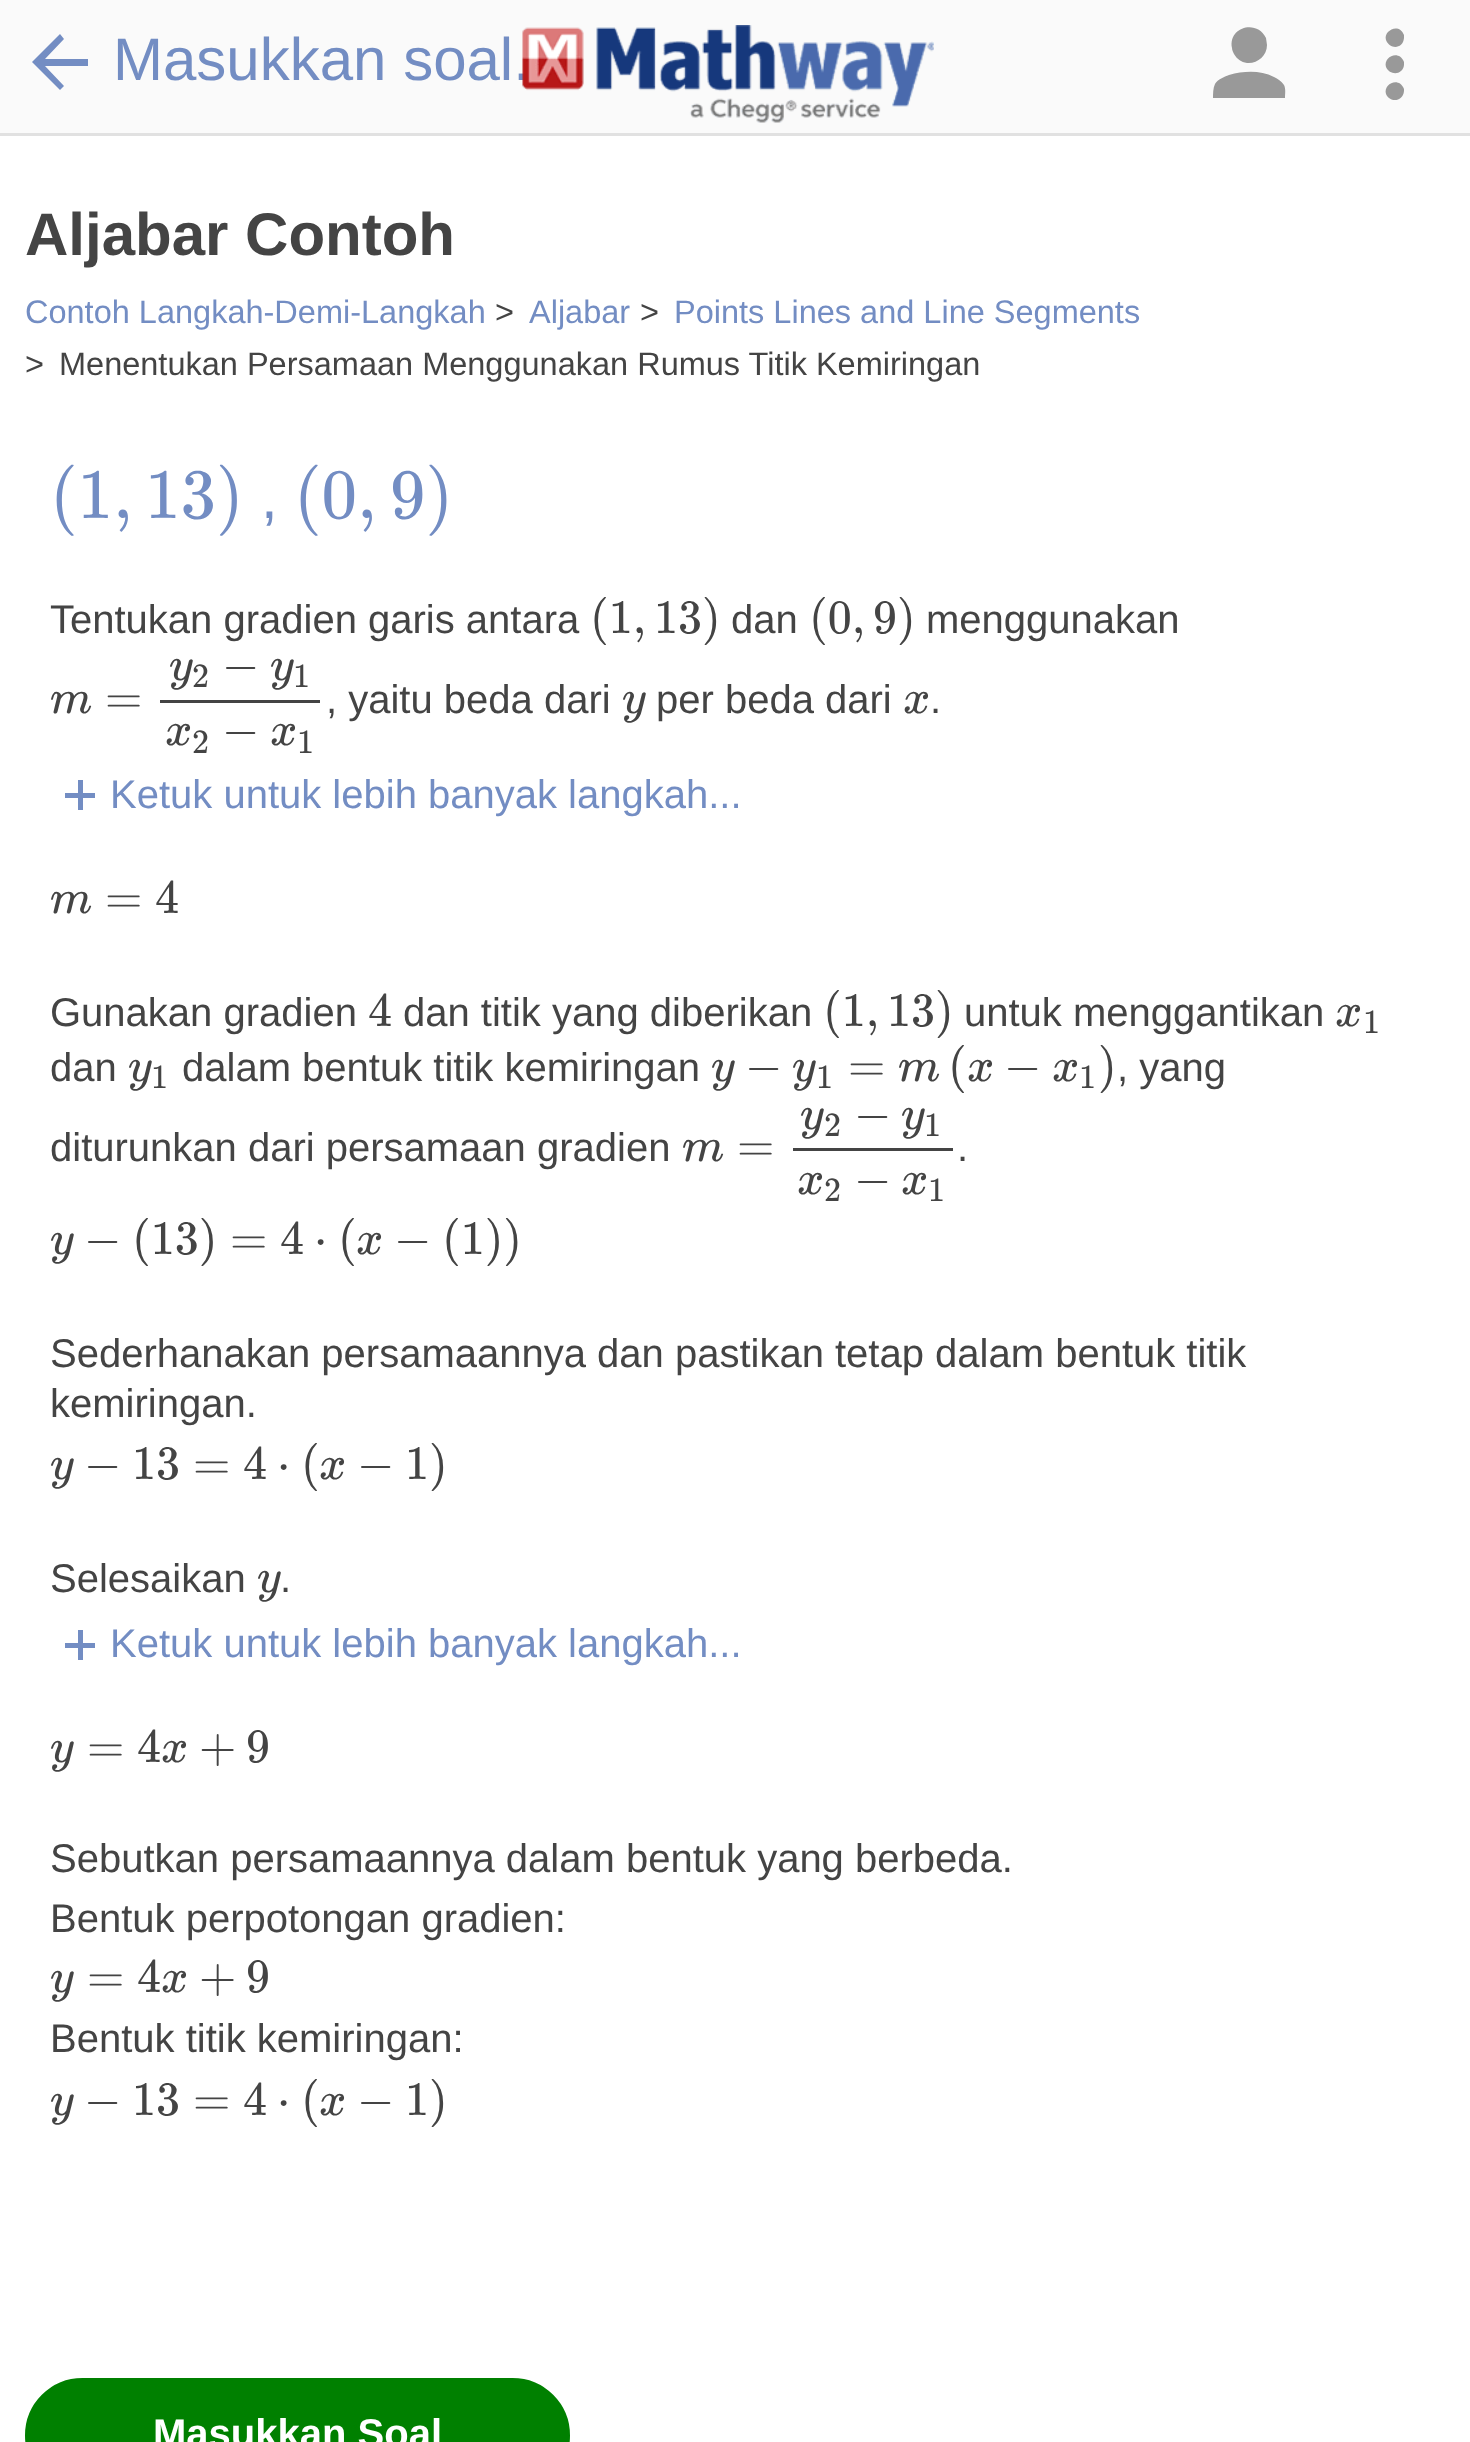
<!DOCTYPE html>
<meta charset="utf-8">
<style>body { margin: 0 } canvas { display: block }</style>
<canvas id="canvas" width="1470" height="2442"></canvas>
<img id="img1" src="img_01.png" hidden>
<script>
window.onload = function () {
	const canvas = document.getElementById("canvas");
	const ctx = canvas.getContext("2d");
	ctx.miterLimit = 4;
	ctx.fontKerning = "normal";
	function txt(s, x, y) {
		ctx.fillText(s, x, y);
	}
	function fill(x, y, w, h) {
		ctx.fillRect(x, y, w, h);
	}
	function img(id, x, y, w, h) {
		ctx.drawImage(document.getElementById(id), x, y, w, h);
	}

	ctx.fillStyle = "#FFFFFF";
	fill(0, 0, 1470, 2442);
	ctx.fillStyle = "#E1E1E1";
	fill(0, 133, 1470, 3);
	ctx.fillStyle = "#FAFAFA";
	fill(0, 0, 1470, 133);
	ctx.fillStyle = "#738DC3";
	ctx.beginPath();
	ctx.moveTo(60, 34);
	ctx.lineTo(32, 62);
	ctx.lineTo(60, 90);
	ctx.lineTo(64, 86);
	ctx.lineTo(45, 66);
	ctx.lineTo(88, 66);
	ctx.lineTo(88, 59);
	ctx.lineTo(45, 59);
	ctx.lineTo(64, 39);
	ctx.closePath();
	ctx.fill();
	ctx.fillStyle = "#999999";
	ctx.beginPath();
	ctx.moveTo(1267, 45);
	ctx.lineTo(1266, 38);
	ctx.bezierCurveTo(1257, 19, 1228, 27, 1232, 48);
	ctx.bezierCurveTo(1232, 50, 1233, 52, 1234, 54);
	ctx.bezierCurveTo(1237, 59, 1241, 62, 1247, 63);
	ctx.bezierCurveTo(1257, 64, 1267, 56, 1267, 45);
	ctx.closePath();
	ctx.moveTo(1285, 98);
	ctx.bezierCurveTo(1285, 94, 1286, 89, 1284, 85);
	ctx.bezierCurveTo(1281, 81, 1278, 79, 1274, 77);
	ctx.bezierCurveTo(1260, 70, 1244, 71, 1229, 75);
	ctx.bezierCurveTo(1224, 77, 1218, 79, 1215, 84);
	ctx.bezierCurveTo(1213, 88, 1213, 94, 1213, 98);
	ctx.closePath();
	ctx.fill();
	ctx.beginPath();
	ctx.moveTo(1404, 35);
	ctx.bezierCurveTo(1399, 22, 1383, 31, 1386, 40);
	ctx.bezierCurveTo(1390, 50, 1403, 49, 1404, 38);
	ctx.closePath();
	ctx.moveTo(1404, 62);
	ctx.bezierCurveTo(1399, 49, 1383, 57, 1386, 67);
	ctx.bezierCurveTo(1390, 76, 1403, 75, 1404, 65);
	ctx.closePath();
	ctx.moveTo(1404, 89);
	ctx.bezierCurveTo(1399, 76, 1383, 84, 1386, 94);
	ctx.bezierCurveTo(1390, 103, 1403, 102, 1404, 91);
	ctx.closePath();
	ctx.fill();
	ctx.fillStyle = "#444444";
	fill(160, 700, 160, 3);
	ctx.fillStyle = "#738DC3";
	fill(78, 780, 5, 30);
	fill(65, 793, 30, 5);
	ctx.fillStyle = "#444444";
	fill(793, 1148, 160, 3);
	ctx.fillStyle = "#738DC3";
	fill(78, 1630, 5, 30);
	fill(65, 1643, 30, 5);
	ctx.fillStyle = "#008000";
	ctx.beginPath();
	ctx.roundRect(26.5, 2379.5, 542, 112, 56);
	ctx.fill();
	ctx.strokeStyle = "#008000";
	ctx.lineWidth = 3;
	ctx.stroke();
	ctx.font = "60px Liberation Sans";
	ctx.fillStyle = "#738DC3";
	txt("Masukkan soal.", 113, 80);
	img("img1", 522, 25, 412, 98);
	ctx.font = "bold 60px Liberation Sans";
	ctx.fillStyle = "#444444";
	txt("Aljabar Contoh", 25, 255);
	ctx.font = "32.5px Liberation Sans";
	ctx.fillStyle = "#738DC3";
	txt("Contoh Langkah-Demi-Langkah", 25, 323);
	ctx.fillStyle = "#444444";
	txt(">", 495, 323);
	ctx.fillStyle = "#738DC3";
	txt("Aljabar", 529, 323);
	ctx.fillStyle = "#444444";
	txt(">", 640, 323);
	ctx.fillStyle = "#738DC3";
	txt("Points Lines and Line Segments", 674, 323);
	ctx.fillStyle = "#444444";
	txt(">", 25, 375);
	txt("Menentukan Persamaan Menggunakan Rumus Titik Kemiringan", 59, 375);
	ctx.font = "71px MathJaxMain";
	ctx.fillStyle = "#738DC3";
	txt("(1,", 50, 518);
	txt("13)", 145, 518);
	ctx.font = "60px Liberation Sans";
	txt(",", 261, 518);
	ctx.font = "71px MathJaxMain";
	txt("(0,", 294, 518);
	txt("9)", 390, 518);
	ctx.font = "40px Liberation Sans";
	ctx.fillStyle = "#444444";
	txt("Tentukan gradien garis antara", 50, 633);
	ctx.font = "48px MathJaxMain";
	txt("(1,", 590, 633);
	txt("13)", 654, 633);
	ctx.font = "40px Liberation Sans";
	txt("dan", 731, 633);
	ctx.font = "48px MathJaxMain";
	txt("(0,", 809, 633);
	txt("9)", 873, 633);
	ctx.font = "40px Liberation Sans";
	txt("menggunakan", 926, 633);
	ctx.font = "italic 48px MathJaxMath";
	txt("m", 50, 713);
	ctx.font = "48px MathJaxMain";
	txt("=", 105, 713);
	ctx.font = "italic 48px MathJaxMath";
	txt("y", 169, 680);
	ctx.font = "34px MathJaxMain";
	txt("2", 192, 687);
	ctx.font = "48px MathJaxMain";
	txt("−", 222, 680);
	ctx.font = "italic 48px MathJaxMath";
	txt("y", 270, 680);
	ctx.font = "34px MathJaxMain";
	txt("1", 293, 687);
	ctx.font = "italic 48px MathJaxMath";
	txt("x", 165, 745);
	ctx.font = "34px MathJaxMain";
	txt("2", 192, 753);
	ctx.font = "48px MathJaxMain";
	txt("−", 222, 745);
	ctx.font = "italic 48px MathJaxMath";
	txt("x", 270, 745);
	ctx.font = "34px MathJaxMain";
	txt("1", 297, 753);
	ctx.font = "40px Liberation Sans";
	txt(", yaitu beda dari", 326, 713);
	ctx.font = "italic 48px MathJaxMath";
	txt("y", 622, 713);
	ctx.font = "40px Liberation Sans";
	txt("per beda dari", 656, 713);
	ctx.font = "italic 48px MathJaxMath";
	txt("x", 903, 713);
	ctx.font = "40px Liberation Sans";
	txt(".", 930, 713);
	ctx.fillStyle = "#738DC3";
	txt("Ketuk untuk lebih banyak langkah...", 110, 808);
	ctx.font = "italic 48px MathJaxMath";
	ctx.fillStyle = "#444444";
	txt("m", 50, 913);
	ctx.font = "48px MathJaxMain";
	txt("=", 105, 913);
	txt("4", 155, 913);
	ctx.font = "40px Liberation Sans";
	txt("Gunakan gradien", 50, 1026);
	ctx.font = "48px MathJaxMain";
	txt("4", 368, 1026);
	ctx.font = "40px Liberation Sans";
	txt("dan titik yang diberikan", 403, 1026);
	ctx.font = "48px MathJaxMain";
	txt("(1,", 823, 1026);
	txt("13)", 887, 1026);
	ctx.font = "40px Liberation Sans";
	txt("untuk menggantikan", 964, 1026);
	ctx.font = "italic 48px MathJaxMath";
	txt("x", 1335, 1026);
	ctx.font = "34px MathJaxMain";
	txt("1", 1363, 1033);
	ctx.font = "40px Liberation Sans";
	txt("dan", 50, 1081);
	ctx.font = "italic 48px MathJaxMath";
	txt("y", 128, 1081);
	ctx.font = "34px MathJaxMain";
	txt("1", 151, 1088);
	ctx.font = "40px Liberation Sans";
	txt("dalam bentuk titik kemiringan", 182, 1081);
	ctx.font = "italic 48px MathJaxMath";
	txt("y", 711, 1081);
	ctx.font = "48px MathJaxMain";
	txt("−", 745, 1081);
	ctx.font = "italic 48px MathJaxMath";
	txt("y", 792, 1081);
	ctx.font = "34px MathJaxMain";
	txt("1", 816, 1088);
	ctx.font = "48px MathJaxMain";
	txt("=", 848, 1081);
	ctx.font = "italic 48px MathJaxMath";
	txt("m", 898, 1081);
	ctx.font = "48px MathJaxMain";
	txt("(", 948, 1081);
	ctx.font = "italic 48px MathJaxMath";
	txt("x", 967, 1081);
	ctx.font = "48px MathJaxMain";
	txt("−", 1004, 1081);
	ctx.font = "italic 48px MathJaxMath";
	txt("x", 1052, 1081);
	ctx.font = "34px MathJaxMain";
	txt("1", 1079, 1088);
	ctx.font = "48px MathJaxMain";
	txt(")", 1098, 1081);
	ctx.font = "40px Liberation Sans";
	txt(", yang", 1117, 1081);
	txt("diturunkan dari persamaan gradien", 50, 1161);
	ctx.font = "italic 48px MathJaxMath";
	txt("m", 682, 1161);
	ctx.font = "48px MathJaxMain";
	txt("=", 737, 1161);
	ctx.font = "italic 48px MathJaxMath";
	txt("y", 800, 1129);
	ctx.font = "34px MathJaxMain";
	txt("2", 824, 1136);
	ctx.font = "48px MathJaxMain";
	txt("−", 854, 1129);
	ctx.font = "italic 48px MathJaxMath";
	txt("y", 901, 1129);
	ctx.font = "34px MathJaxMain";
	txt("1", 924, 1136);
	ctx.font = "italic 48px MathJaxMath";
	txt("x", 797, 1194);
	ctx.font = "34px MathJaxMain";
	txt("2", 824, 1201);
	ctx.font = "48px MathJaxMain";
	txt("−", 854, 1194);
	ctx.font = "italic 48px MathJaxMath";
	txt("x", 901, 1194);
	ctx.font = "34px MathJaxMain";
	txt("1", 928, 1201);
	ctx.font = "40px Liberation Sans";
	txt(".", 957, 1161);
	ctx.font = "italic 48px MathJaxMath";
	txt("y", 50, 1254);
	ctx.font = "48px MathJaxMain";
	txt("−", 84, 1254);
	txt("(13)", 132, 1254);
	txt("=", 230, 1254);
	txt("4", 280, 1254);
	txt("⋅", 314, 1254);
	txt("(", 338, 1254);
	ctx.font = "italic 48px MathJaxMath";
	txt("x", 356, 1254);
	ctx.font = "48px MathJaxMain";
	txt("−", 394, 1254);
	txt("(1))", 442, 1254);
	ctx.font = "40px Liberation Sans";
	txt("Sederhanakan persamaannya dan pastikan tetap dalam bentuk titik", 50, 1367);
	txt("kemiringan.", 50, 1417);
	ctx.font = "italic 48px MathJaxMath";
	txt("y", 50, 1479);
	ctx.font = "48px MathJaxMain";
	txt("−", 84, 1479);
	txt("13", 132, 1479);
	txt("=", 193, 1479);
	txt("4", 243, 1479);
	txt("⋅", 277, 1479);
	txt("(", 301, 1479);
	ctx.font = "italic 48px MathJaxMath";
	txt("x", 319, 1479);
	ctx.font = "48px MathJaxMain";
	txt("−", 357, 1479);
	txt("1)", 405, 1479);
	ctx.font = "40px Liberation Sans";
	txt("Selesaikan", 50, 1592);
	ctx.font = "italic 48px MathJaxMath";
	txt("y", 257, 1592);
	ctx.font = "40px Liberation Sans";
	txt(".", 280, 1592);
	ctx.fillStyle = "#738DC3";
	txt("Ketuk untuk lebih banyak langkah...", 110, 1657);
	ctx.font = "italic 48px MathJaxMath";
	ctx.fillStyle = "#444444";
	txt("y", 50, 1762);
	ctx.font = "48px MathJaxMain";
	txt("=", 87, 1762);
	txt("4", 137, 1762);
	ctx.font = "italic 48px MathJaxMath";
	txt("x", 161, 1762);
	ctx.font = "48px MathJaxMain";
	txt("+", 199, 1762);
	txt("9", 246, 1762);
	ctx.font = "40px Liberation Sans";
	txt("Sebutkan persamaannya dalam bentuk yang berbeda.", 50, 1872);
	txt("Bentuk perpotongan gradien:", 50, 1932);
	ctx.font = "italic 48px MathJaxMath";
	txt("y", 50, 1992);
	ctx.font = "48px MathJaxMain";
	txt("=", 87, 1992);
	txt("4", 137, 1992);
	ctx.font = "italic 48px MathJaxMath";
	txt("x", 161, 1992);
	ctx.font = "48px MathJaxMain";
	txt("+", 199, 1992);
	txt("9", 246, 1992);
	ctx.font = "40px Liberation Sans";
	txt("Bentuk titik kemiringan:", 50, 2052);
	ctx.font = "italic 48px MathJaxMath";
	txt("y", 50, 2115);
	ctx.font = "48px MathJaxMain";
	txt("−", 84, 2115);
	txt("13", 132, 2115);
	txt("=", 193, 2115);
	txt("4", 243, 2115);
	txt("⋅", 277, 2115);
	txt("(", 301, 2115);
	ctx.font = "italic 48px MathJaxMath";
	txt("x", 319, 2115);
	ctx.font = "48px MathJaxMain";
	txt("−", 357, 2115);
	txt("1)", 405, 2115);
	ctx.font = "bold 40px Liberation Sans";
	ctx.fillStyle = "#FFFFFF";
	txt("Masukkan Soal", 153, 2447);
};
</script>
